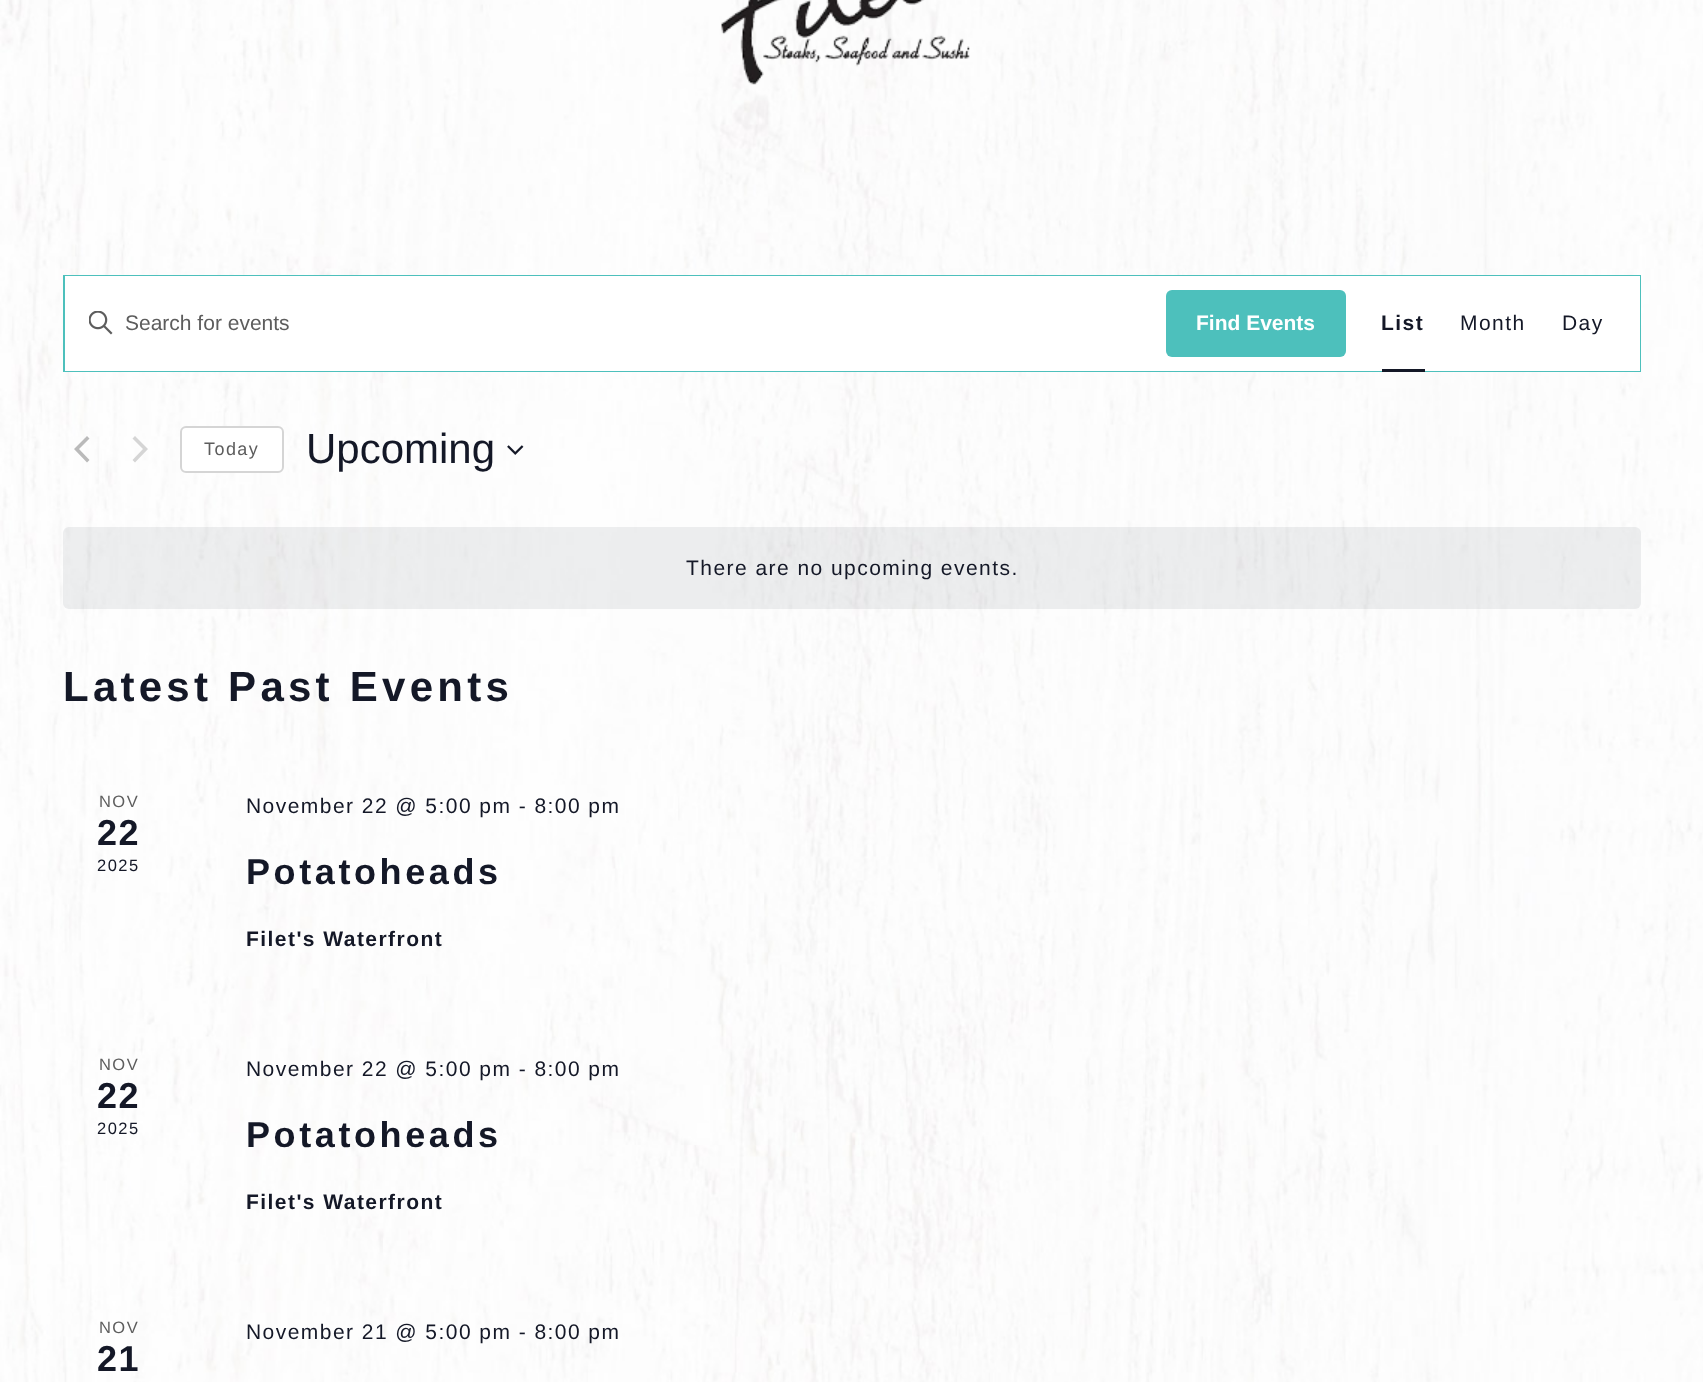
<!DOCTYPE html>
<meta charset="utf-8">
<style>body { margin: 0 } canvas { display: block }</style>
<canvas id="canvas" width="1703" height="1382"></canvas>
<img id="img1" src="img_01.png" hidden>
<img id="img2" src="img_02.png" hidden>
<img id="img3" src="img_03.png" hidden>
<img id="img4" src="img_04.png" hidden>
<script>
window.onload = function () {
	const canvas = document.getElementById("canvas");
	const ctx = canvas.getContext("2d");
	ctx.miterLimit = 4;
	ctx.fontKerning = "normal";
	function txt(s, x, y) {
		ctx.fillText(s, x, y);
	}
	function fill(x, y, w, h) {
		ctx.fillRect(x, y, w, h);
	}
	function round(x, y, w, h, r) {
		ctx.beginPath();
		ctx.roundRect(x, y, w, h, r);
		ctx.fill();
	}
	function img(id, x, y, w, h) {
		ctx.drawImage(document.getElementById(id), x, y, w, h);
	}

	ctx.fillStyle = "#FFFFFF";
	fill(0, 0, 1703, 1382);
	img("img1", 0, 0, 1703, 1382);
	img("img2", 721, 0, 249, 85);
	ctx.strokeStyle = "#4DC0BC";
	ctx.lineWidth = 2;
	ctx.strokeRect(64, 276, 1576, 95);
	fill(65, 276, 1575, 95);
	img("img3", 89, 311, 24, 24);
	ctx.fillStyle = "#4DC0BC";
	round(1166, 290, 180, 67, 6);
	ctx.fillStyle = "#141827";
	fill(1382, 369, 43, 3);
	ctx.fillStyle = "#BABABA";
	ctx.beginPath();
	ctx.moveTo(89.5, 460);
	ctx.lineTo(87, 462.5);
	ctx.lineTo(74, 449);
	ctx.lineTo(87, 436);
	ctx.lineTo(89.5, 438.5);
	ctx.lineTo(79, 449);
	ctx.closePath();
	ctx.fill();
	ctx.fillStyle = "#D5D5D5";
	ctx.beginPath();
	ctx.moveTo(132.5, 438.5);
	ctx.lineTo(135, 436);
	ctx.lineTo(148, 449);
	ctx.lineTo(135, 462.5);
	ctx.lineTo(132.5, 460);
	ctx.lineTo(143, 449);
	ctx.closePath();
	ctx.fill();
	ctx.fillStyle = "#FFFFFF";
	ctx.beginPath();
	ctx.roundRect(181, 427, 102, 45, 5);
	ctx.fill();
	ctx.strokeStyle = "#D5D5D5";
	ctx.stroke();
	img("img4", 507, 445, 17, 10);
	ctx.fillStyle = "rgba(20, 24, 39, 0.07)";
	round(63, 527, 1578, 82, 6);
	ctx.font = "21px Liberation Sans";
	ctx.fillStyle = "#5D5D5D";
	txt("Search for events", 125, 330);
	ctx.font = "bold 21px Liberation Sans";
	ctx.fillStyle = "#FFFFFF";
	txt("Find Events", 1196, 330);
	ctx.letterSpacing = "1.45px";
	ctx.fillStyle = "#141827";
	txt("List", 1381, 330);
	ctx.font = "21px Liberation Sans";
	txt("Month", 1460, 330);
	txt("Day", 1562, 330);
	ctx.font = "18px Liberation Sans";
	ctx.fillStyle = "#5D5D5D";
	txt("Today", 204, 455);
	ctx.letterSpacing = "0px";
	ctx.font = "42px Liberation Sans";
	ctx.fillStyle = "#141827";
	txt("Upcoming", 306, 463);
	ctx.letterSpacing = "1.45px";
	ctx.font = "21px Liberation Sans";
	txt("There are no upcoming events.", 686, 575);
	ctx.letterSpacing = "4.25px";
	ctx.font = "bold 42px Liberation Sans";
	txt("Latest Past Events", 63, 701);
	ctx.letterSpacing = "1.45px";
	ctx.font = "16.5px Liberation Sans";
	ctx.fillStyle = "#5D5D5D";
	txt("NOV", 99, 807);
	ctx.font = "bold 36px Liberation Sans";
	ctx.fillStyle = "#141827";
	txt("22", 97, 845);
	ctx.font = "16.5px Liberation Sans";
	txt("2025", 97, 871);
	ctx.font = "21px Liberation Sans";
	txt("November 22 @ 5:00 pm - 8:00 pm", 246, 813);
	ctx.letterSpacing = "3.6px";
	ctx.font = "bold 36px Liberation Sans";
	txt("Potatoheads", 246, 884);
	ctx.letterSpacing = "1.45px";
	ctx.font = "bold 21px Liberation Sans";
	txt("Filet's Waterfront", 246, 946);
	ctx.font = "16.5px Liberation Sans";
	ctx.fillStyle = "#5D5D5D";
	txt("NOV", 99, 1070);
	ctx.font = "bold 36px Liberation Sans";
	ctx.fillStyle = "#141827";
	txt("22", 97, 1108);
	ctx.font = "16.5px Liberation Sans";
	txt("2025", 97, 1134);
	ctx.font = "21px Liberation Sans";
	txt("November 22 @ 5:00 pm - 8:00 pm", 246, 1076);
	ctx.letterSpacing = "3.6px";
	ctx.font = "bold 36px Liberation Sans";
	txt("Potatoheads", 246, 1147);
	ctx.letterSpacing = "1.45px";
	ctx.font = "bold 21px Liberation Sans";
	txt("Filet's Waterfront", 246, 1209);
	ctx.font = "16.5px Liberation Sans";
	ctx.fillStyle = "#5D5D5D";
	txt("NOV", 99, 1333);
	ctx.font = "bold 36px Liberation Sans";
	ctx.fillStyle = "#141827";
	txt("21", 97, 1371);
	ctx.font = "21px Liberation Sans";
	txt("November 21 @ 5:00 pm - 8:00 pm", 246, 1339);
};
</script>
